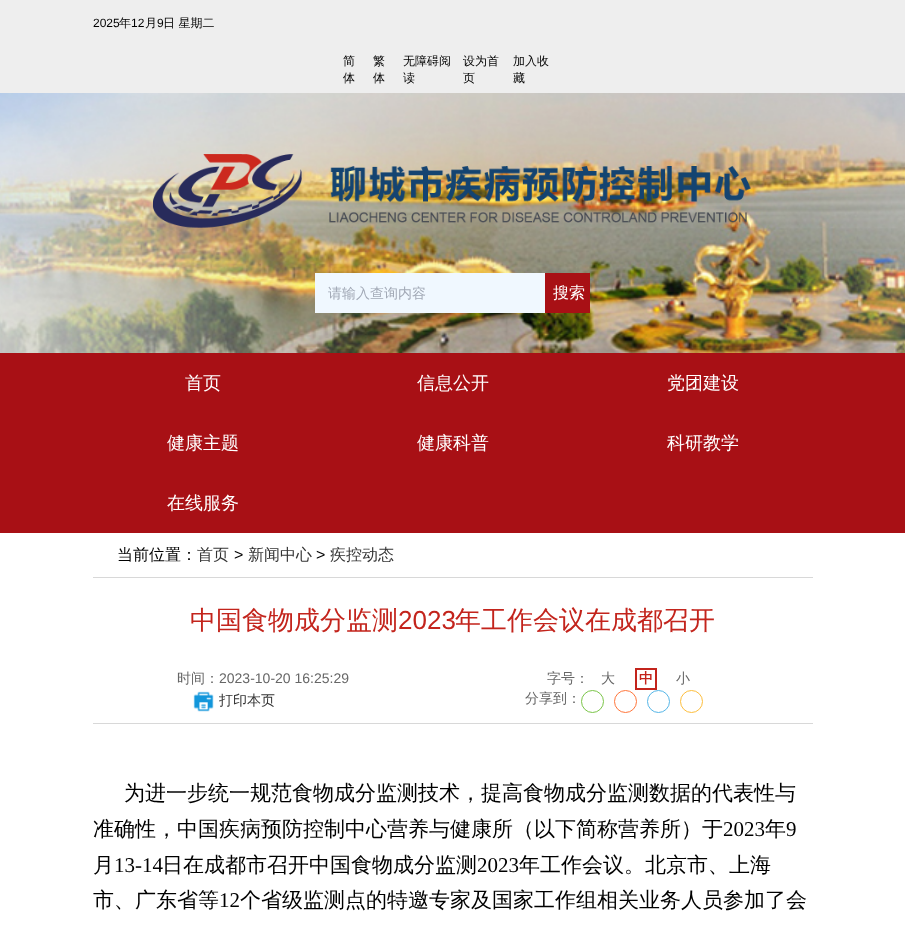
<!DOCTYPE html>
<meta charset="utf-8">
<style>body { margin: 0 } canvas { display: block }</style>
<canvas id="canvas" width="905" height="932"></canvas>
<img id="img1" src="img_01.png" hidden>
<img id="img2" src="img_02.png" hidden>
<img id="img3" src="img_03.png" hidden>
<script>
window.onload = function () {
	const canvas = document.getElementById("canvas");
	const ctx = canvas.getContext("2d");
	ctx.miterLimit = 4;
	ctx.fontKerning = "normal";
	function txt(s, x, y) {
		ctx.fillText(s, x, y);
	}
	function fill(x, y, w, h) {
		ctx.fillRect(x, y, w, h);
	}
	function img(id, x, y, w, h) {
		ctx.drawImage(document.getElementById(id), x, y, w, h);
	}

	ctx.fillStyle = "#FFFFFF";
	fill(0, 0, 905, 932);
	ctx.fillStyle = "#EEEEEE";
	fill(0, 0, 905, 93);
	img("img1", 0, 93, 905, 260);
	img("img2", 153, 154, 598, 74);
	ctx.fillStyle = "#F0F8FF";
	fill(315, 273, 230, 40);
	ctx.fillStyle = "#A81015";
	fill(545, 273, 45, 40);
	fill(0, 353, 905, 180);
	ctx.fillStyle = "#D8D8D8";
	fill(93, 577, 720, 1);
	ctx.strokeStyle = "#C3241C";
	ctx.lineWidth = 2;
	ctx.strokeRect(636, 669, 20, 20);
	img("img3", 193, 691, 21, 21);
	ctx.beginPath();
	ctx.arc(592.5, 701.5, 11, 0, Math.PI * 2);
	ctx.strokeStyle = "#7BC549";
	ctx.lineWidth = 1;
	ctx.stroke();
	ctx.beginPath();
	ctx.arc(625.5, 701.5, 11, 0, Math.PI * 2);
	ctx.strokeStyle = "#FF763B";
	ctx.stroke();
	ctx.beginPath();
	ctx.arc(658.5, 701.5, 11, 0, Math.PI * 2);
	ctx.strokeStyle = "#56B6E7";
	ctx.stroke();
	ctx.beginPath();
	ctx.arc(691.5, 701.5, 11, 0, Math.PI * 2);
	ctx.strokeStyle = "#FDBE3D";
	ctx.stroke();
	fill(93, 723, 720, 1);
	ctx.font = "12px Liberation Sans";
	ctx.fillStyle = "#000000";
	txt("2025", 93, 27);
	ctx.font = "500 12px WenQuanYi Zen Hei";
	txt("年", 119, 27);
	ctx.font = "12px Liberation Sans";
	txt("12", 131, 27);
	ctx.font = "500 12px WenQuanYi Zen Hei";
	txt("月", 145, 27);
	ctx.font = "12px Liberation Sans";
	txt("9", 157, 27);
	ctx.font = "500 12px WenQuanYi Zen Hei";
	txt("日 星期二", 163, 27);
	txt("简", 343, 65);
	txt("体", 343, 82);
	txt("繁", 373, 65);
	txt("体", 373, 82);
	txt("无障碍阅", 403, 65);
	txt("读", 403, 82);
	txt("设为首", 463, 65);
	txt("页", 463, 82);
	txt("加入收", 513, 65);
	txt("藏", 513, 82);
	ctx.font = "500 14px WenQuanYi Zen Hei";
	ctx.fillStyle = "#A2A9B6";
	txt("请输入查询内容", 328, 298);
	ctx.font = "500 16px WenQuanYi Zen Hei";
	ctx.fillStyle = "#FFFFFF";
	txt("搜索", 553, 298);
	ctx.font = "500 18px WenQuanYi Zen Hei";
	txt("首页", 185, 389);
	txt("信息公开", 417, 389);
	txt("党团建设", 667, 389);
	txt("健康主题", 167, 449);
	txt("健康科普", 417, 449);
	txt("科研教学", 667, 449);
	txt("在线服务", 167, 509);
	ctx.font = "500 16px WenQuanYi Zen Hei";
	ctx.fillStyle = "#000000";
	txt("当前位置：", 117, 560);
	ctx.fillStyle = "#333333";
	txt("首页", 197, 560);
	ctx.font = "16px Liberation Sans";
	ctx.fillStyle = "#000000";
	txt(">", 234, 560);
	ctx.font = "500 16px WenQuanYi Zen Hei";
	ctx.fillStyle = "#333333";
	txt("新闻中心", 248, 560);
	ctx.font = "16px Liberation Sans";
	ctx.fillStyle = "#000000";
	txt(">", 316, 560);
	ctx.font = "500 16px WenQuanYi Zen Hei";
	ctx.fillStyle = "#333333";
	txt("疾控动态", 330, 560);
	ctx.font = "500 26px WenQuanYi Zen Hei";
	ctx.fillStyle = "#C3241C";
	txt("中国食物成分监测", 190, 629);
	ctx.font = "26px Liberation Sans";
	txt("2023", 398, 629);
	ctx.font = "500 26px WenQuanYi Zen Hei";
	txt("年工作会议在成都召开", 455, 629);
	ctx.font = "500 14px WenQuanYi Zen Hei";
	ctx.fillStyle = "#666666";
	txt("时间：", 177, 683);
	ctx.font = "14px Liberation Sans";
	txt("2023-10-20 16:25:29", 219, 683);
	ctx.font = "500 14px WenQuanYi Zen Hei";
	txt("字号：", 547, 683);
	txt("大", 601, 683);
	ctx.font = "bold 14px WenQuanYi Zen Hei";
	ctx.fillStyle = "#C3241C";
	txt("中", 639, 683);
	ctx.font = "500 14px WenQuanYi Zen Hei";
	ctx.fillStyle = "#666666";
	txt("小", 676, 683);
	ctx.fillStyle = "#333333";
	txt("打印本页", 219, 705);
	ctx.fillStyle = "#666666";
	txt("分享到：", 525, 703);
	ctx.font = "500 21px WenQuanYi Zen Hei";
	ctx.fillStyle = "#000000";
	txt("为进一步统一规范食物成分监测技术，提高食物成分监测数据的代表性与", 124, 800);
	txt("准确性，中国疾病预防控制中心营养与健康所（以下简称营养所）于", 93, 836);
	ctx.font = "21px Liberation Serif";
	txt("2023", 723, 836);
	ctx.font = "500 21px WenQuanYi Zen Hei";
	txt("年", 765, 836);
	ctx.font = "21px Liberation Serif";
	txt("9", 786, 836);
	ctx.font = "500 21px WenQuanYi Zen Hei";
	txt("月", 93, 872);
	ctx.font = "21px Liberation Serif";
	txt("13-14", 114, 872);
	ctx.font = "500 21px WenQuanYi Zen Hei";
	txt("日在成都市召开中国食物成分监测", 162, 872);
	ctx.font = "21px Liberation Serif";
	txt("2023", 477, 872);
	ctx.font = "500 21px WenQuanYi Zen Hei";
	txt("年工作会议。北京市、上海", 519, 872);
	txt("市、广东省等", 93, 907);
	ctx.font = "21px Liberation Serif";
	txt("12", 219, 907);
	ctx.font = "500 21px WenQuanYi Zen Hei";
	txt("个省级监测点的特邀专家及国家工作组相关业务人员参加了会", 240, 907);
};
</script>
